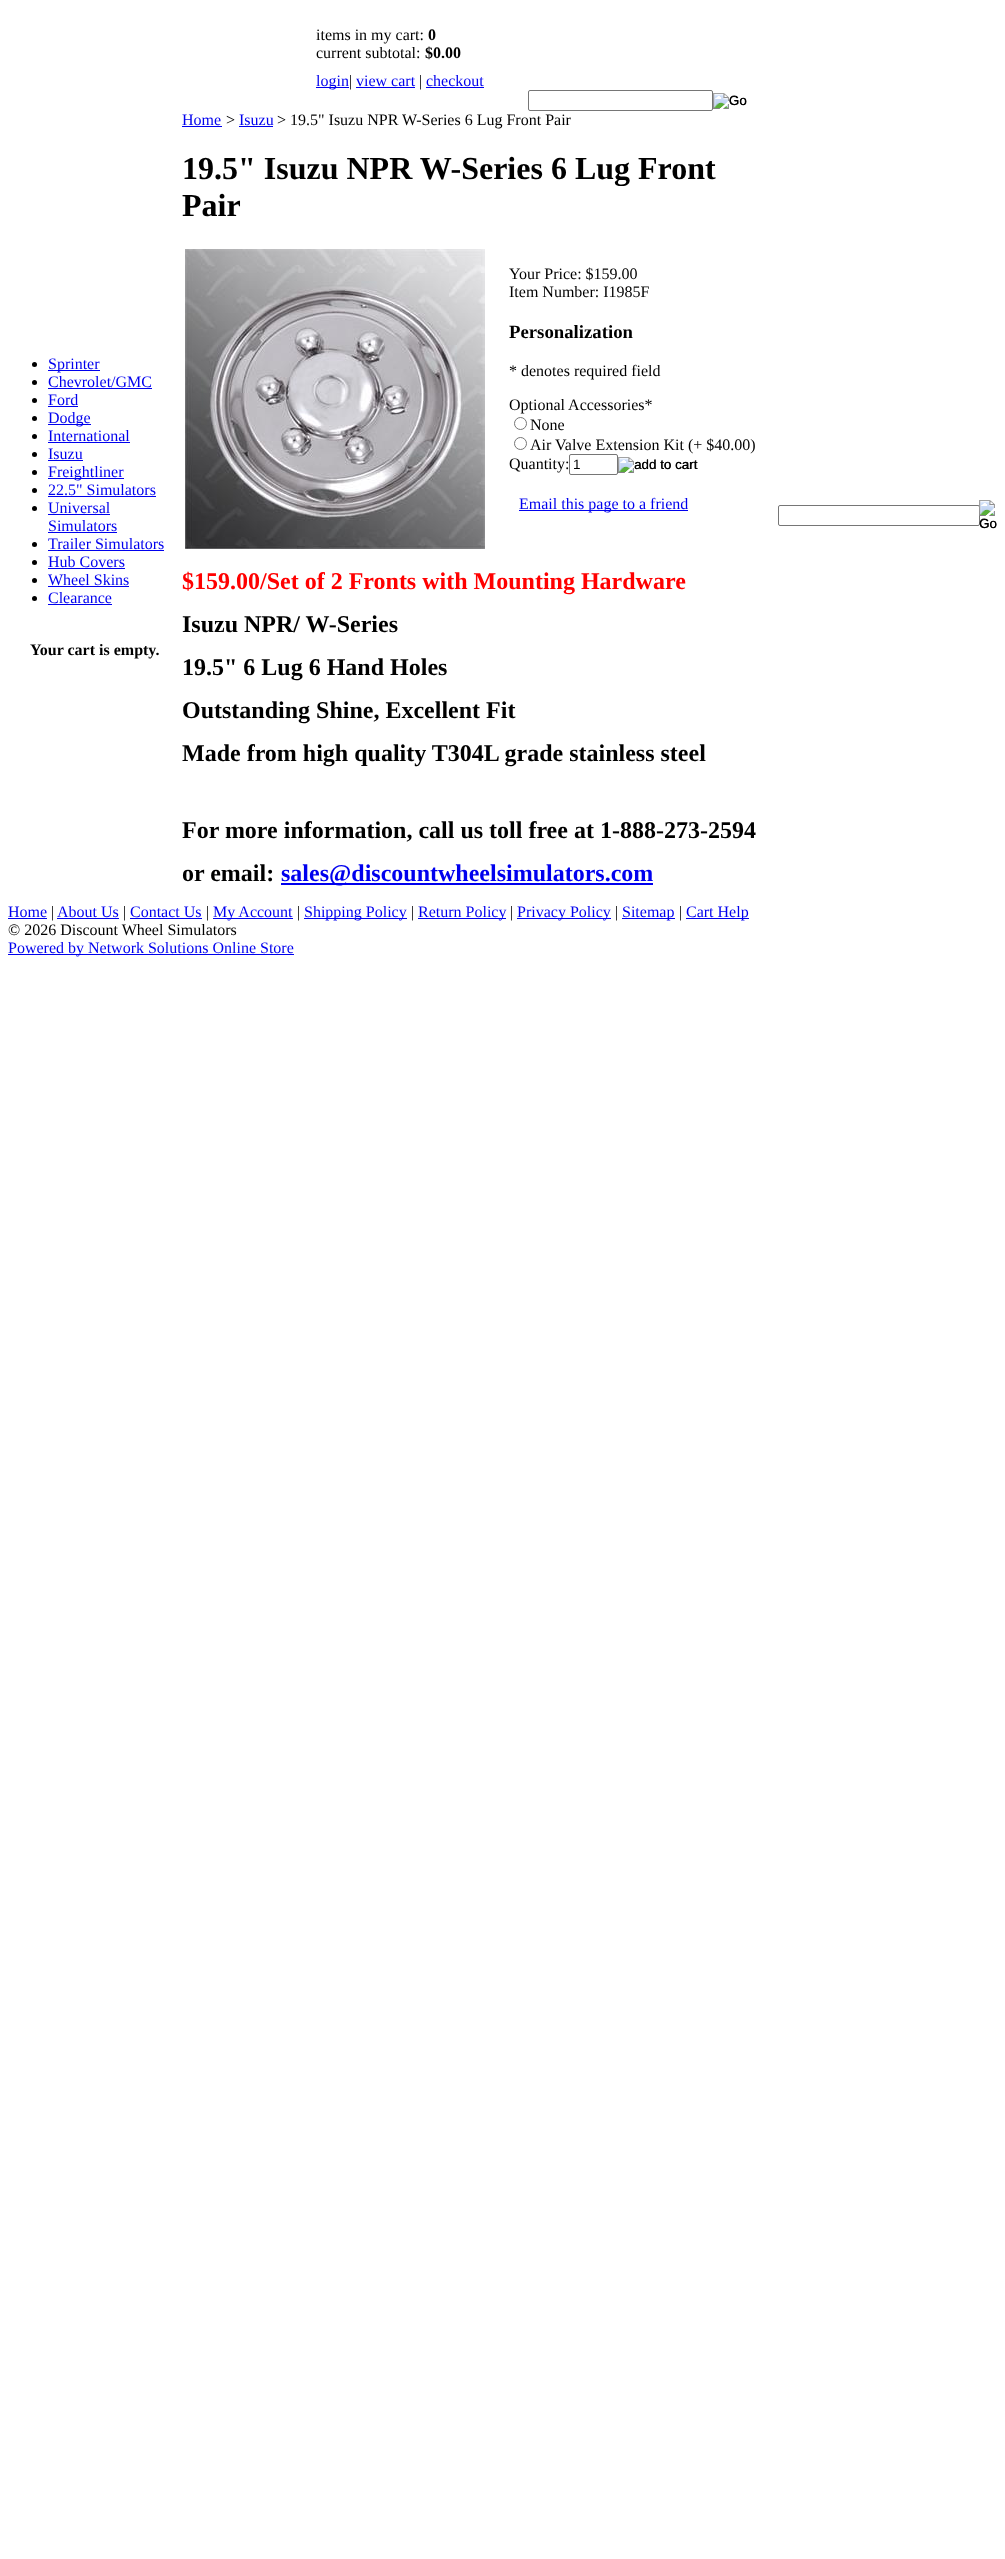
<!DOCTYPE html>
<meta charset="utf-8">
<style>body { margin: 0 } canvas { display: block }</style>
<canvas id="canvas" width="1005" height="2559"></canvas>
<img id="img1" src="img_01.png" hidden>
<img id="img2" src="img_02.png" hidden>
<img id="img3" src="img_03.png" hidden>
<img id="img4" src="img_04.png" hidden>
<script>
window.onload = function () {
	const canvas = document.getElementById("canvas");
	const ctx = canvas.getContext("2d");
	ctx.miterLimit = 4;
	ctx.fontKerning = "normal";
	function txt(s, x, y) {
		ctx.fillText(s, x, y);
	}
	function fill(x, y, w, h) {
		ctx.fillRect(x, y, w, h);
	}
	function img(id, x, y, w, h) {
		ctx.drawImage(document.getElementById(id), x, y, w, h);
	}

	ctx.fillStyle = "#FFFFFF";
	fill(0, 0, 1005, 2559);
	ctx.fillStyle = "#0000EE";
	fill(316, 87, 33, 1);
	fill(356, 87, 59, 1);
	fill(426, 87, 58, 1);
	ctx.beginPath();
	ctx.roundRect(528.5, 90.5, 184, 20, 1.5);
	ctx.strokeStyle = "#767676";
	ctx.stroke();
	img("img1", 713, 93, 34, 16);
	ctx.fillStyle = "#000000";
	ctx.beginPath();
	ctx.arc(34.5, 364.5, 2.5, 0, Math.PI * 2);
	ctx.fill();
	ctx.fillStyle = "#0000EE";
	fill(48, 370, 52, 1);
	ctx.fillStyle = "#000000";
	ctx.beginPath();
	ctx.arc(34.5, 382.5, 2.5, 0, Math.PI * 2);
	ctx.fill();
	ctx.fillStyle = "#0000EE";
	fill(48, 388, 104, 1);
	ctx.fillStyle = "#000000";
	ctx.beginPath();
	ctx.arc(34.5, 400.5, 2.5, 0, Math.PI * 2);
	ctx.fill();
	ctx.fillStyle = "#0000EE";
	fill(48, 406, 30, 1);
	ctx.fillStyle = "#000000";
	ctx.beginPath();
	ctx.arc(34.5, 418.5, 2.5, 0, Math.PI * 2);
	ctx.fill();
	ctx.fillStyle = "#0000EE";
	fill(48, 424, 43, 1);
	ctx.fillStyle = "#000000";
	ctx.beginPath();
	ctx.arc(34.5, 436.5, 2.5, 0, Math.PI * 2);
	ctx.fill();
	ctx.fillStyle = "#0000EE";
	fill(48, 442, 82, 1);
	ctx.fillStyle = "#000000";
	ctx.beginPath();
	ctx.arc(34.5, 454.5, 2.5, 0, Math.PI * 2);
	ctx.fill();
	ctx.fillStyle = "#0000EE";
	fill(48, 460, 35, 1);
	ctx.fillStyle = "#000000";
	ctx.beginPath();
	ctx.arc(34.5, 472.5, 2.5, 0, Math.PI * 2);
	ctx.fill();
	ctx.fillStyle = "#0000EE";
	fill(48, 478, 76, 1);
	ctx.fillStyle = "#000000";
	ctx.beginPath();
	ctx.arc(34.5, 490.5, 2.5, 0, Math.PI * 2);
	ctx.fill();
	ctx.fillStyle = "#0000EE";
	fill(48, 496, 108, 1);
	ctx.fillStyle = "#000000";
	ctx.beginPath();
	ctx.arc(34.5, 508.5, 2.5, 0, Math.PI * 2);
	ctx.fill();
	ctx.fillStyle = "#0000EE";
	fill(48, 514, 62, 1);
	fill(48, 532, 69, 1);
	ctx.fillStyle = "#000000";
	ctx.beginPath();
	ctx.arc(34.5, 544.5, 2.5, 0, Math.PI * 2);
	ctx.fill();
	ctx.fillStyle = "#0000EE";
	fill(48, 550, 116, 1);
	ctx.fillStyle = "#000000";
	ctx.beginPath();
	ctx.arc(34.5, 562.5, 2.5, 0, Math.PI * 2);
	ctx.fill();
	ctx.fillStyle = "#0000EE";
	fill(48, 568, 77, 1);
	ctx.fillStyle = "#000000";
	ctx.beginPath();
	ctx.arc(34.5, 580.5, 2.5, 0, Math.PI * 2);
	ctx.fill();
	ctx.fillStyle = "#0000EE";
	fill(48, 586, 81, 1);
	ctx.fillStyle = "#000000";
	ctx.beginPath();
	ctx.arc(34.5, 598.5, 2.5, 0, Math.PI * 2);
	ctx.fill();
	ctx.fillStyle = "#0000EE";
	fill(48, 604, 64, 1);
	fill(182, 126, 40, 1);
	fill(239, 126, 34, 1);
	img("img2", 185, 249, 300, 300);
	ctx.beginPath();
	ctx.arc(520.5, 423.5, 6, 0, Math.PI * 2);
	ctx.stroke();
	ctx.beginPath();
	ctx.arc(520.5, 443.5, 6, 0, Math.PI * 2);
	ctx.stroke();
	ctx.beginPath();
	ctx.roundRect(569.5, 454.5, 48, 20, 1.5);
	ctx.stroke();
	img("img3", 618, 457, 79, 16);
	fill(519, 510, 169, 1);
	fill(281, 883, 372, 2);
	ctx.beginPath();
	ctx.roundRect(778.5, 505.5, 201, 20, 1.5);
	ctx.stroke();
	img("img4", 979, 500, 18, 28);
	fill(8, 918, 39, 1);
	fill(57, 918, 62, 1);
	fill(130, 918, 72, 1);
	fill(213, 918, 80, 1);
	fill(304, 918, 103, 1);
	fill(418, 918, 88, 1);
	fill(517, 918, 94, 1);
	fill(622, 918, 53, 1);
	fill(686, 918, 63, 1);
	fill(8, 954, 286, 1);
	ctx.font = "16px Liberation Serif";
	ctx.fillStyle = "#000000";
	txt("items in my cart:", 316, 40);
	ctx.font = "bold 16px Liberation Serif";
	txt("0", 428, 40);
	ctx.font = "16px Liberation Serif";
	txt("current subtotal:", 316, 58);
	ctx.font = "bold 16px Liberation Serif";
	txt("$0.00", 425, 58);
	ctx.font = "16px Liberation Serif";
	ctx.fillStyle = "#0000EE";
	txt("login", 316, 86);
	ctx.fillStyle = "#000000";
	txt("|", 349, 86);
	ctx.fillStyle = "#0000EE";
	txt("view cart", 356, 86);
	ctx.fillStyle = "#000000";
	txt("|", 419, 86);
	ctx.fillStyle = "#0000EE";
	txt("checkout", 426, 86);
	ctx.font = "13.5px Liberation Sans";
	ctx.fillStyle = "#000000";
	txt("Go", 729, 105);
	ctx.font = "16px Liberation Serif";
	ctx.fillStyle = "#0000EE";
	txt("Sprinter", 48, 369);
	txt("Chevrolet/GMC", 48, 387);
	txt("Ford", 48, 405);
	txt("Dodge", 48, 423);
	txt("International", 48, 441);
	txt("Isuzu", 48, 459);
	txt("Freightliner", 48, 477);
	txt("22.5\" Simulators", 48, 495);
	txt("Universal", 48, 513);
	txt("Simulators", 48, 531);
	txt("Trailer Simulators", 48, 549);
	txt("Hub Covers", 48, 567);
	txt("Wheel Skins", 48, 585);
	txt("Clearance", 48, 603);
	ctx.font = "bold 16px Liberation Serif";
	ctx.fillStyle = "#000000";
	txt("Your cart is empty.", 30, 655);
	ctx.font = "16px Liberation Serif";
	ctx.fillStyle = "#0000EE";
	txt("Home", 182, 125);
	ctx.fillStyle = "#000000";
	txt(">", 226, 125);
	ctx.fillStyle = "#0000EE";
	txt("Isuzu", 239, 125);
	ctx.fillStyle = "#000000";
	txt("> 19.5\" Isuzu NPR W-Series 6 Lug Front Pair", 277, 125);
	ctx.font = "bold 32px Liberation Serif";
	txt("19.5\" Isuzu NPR W-Series 6 Lug Front", 182, 179);
	txt("Pair", 182, 216);
	ctx.font = "16px Liberation Serif";
	txt("Your Price: $159.00", 509, 279);
	txt("Item Number: I1985F", 509, 297);
	ctx.font = "bold 18.75px Liberation Serif";
	txt("Personalization", 509, 338);
	ctx.font = "16px Liberation Serif";
	txt("* denotes required field", 509, 376);
	txt("Optional Accessories*", 509, 410);
	txt("None", 530, 430);
	txt("Air Valve Extension Kit (+ $40.00)", 530, 450);
	txt("Quantity:", 509, 469);
	ctx.font = "13.5px Liberation Sans";
	txt("1", 573, 469);
	txt("add to cart", 634, 469);
	ctx.font = "16px Liberation Serif";
	ctx.fillStyle = "#0000EE";
	txt("Email this page to a friend", 519, 509);
	ctx.font = "bold 24px Liberation Serif";
	ctx.fillStyle = "#FF0000";
	txt("$159.00/Set of 2 Fronts with Mounting Hardware", 182, 589);
	ctx.fillStyle = "#000000";
	txt("Isuzu NPR/ W-Series", 182, 632);
	txt("19.5\" 6 Lug 6 Hand Holes", 182, 675);
	txt("Outstanding Shine, Excellent Fit", 182, 718);
	txt("Made from high quality T304L grade stainless steel", 182, 761);
	txt("For more information, call us toll free at 1-888-273-2594", 182, 838);
	txt("or email:", 182, 881);
	ctx.fillStyle = "#0000EE";
	txt("sales@discountwheelsimulators.com", 281, 881);
	ctx.font = "13.5px Liberation Sans";
	ctx.fillStyle = "#000000";
	txt("Go", 979, 528);
	ctx.font = "16px Liberation Serif";
	ctx.fillStyle = "#0000EE";
	txt("Home", 8, 917);
	ctx.fillStyle = "#000000";
	txt("|", 51, 917);
	ctx.fillStyle = "#0000EE";
	txt("About Us", 57, 917);
	ctx.fillStyle = "#000000";
	txt("|", 123, 917);
	ctx.fillStyle = "#0000EE";
	txt("Contact Us", 130, 917);
	ctx.fillStyle = "#000000";
	txt("|", 206, 917);
	ctx.fillStyle = "#0000EE";
	txt("My Account", 213, 917);
	ctx.fillStyle = "#000000";
	txt("|", 297, 917);
	ctx.fillStyle = "#0000EE";
	txt("Shipping Policy", 304, 917);
	ctx.fillStyle = "#000000";
	txt("|", 411, 917);
	ctx.fillStyle = "#0000EE";
	txt("Return Policy", 418, 917);
	ctx.fillStyle = "#000000";
	txt("|", 510, 917);
	ctx.fillStyle = "#0000EE";
	txt("Privacy Policy", 517, 917);
	ctx.fillStyle = "#000000";
	txt("|", 615, 917);
	ctx.fillStyle = "#0000EE";
	txt("Sitemap", 622, 917);
	ctx.fillStyle = "#000000";
	txt("|", 679, 917);
	ctx.fillStyle = "#0000EE";
	txt("Cart Help", 686, 917);
	ctx.fillStyle = "#000000";
	txt("© 2026 Discount Wheel Simulators", 8, 935);
	ctx.fillStyle = "#0000EE";
	txt("Powered by Network Solutions Online Store", 8, 953);
};
</script>
